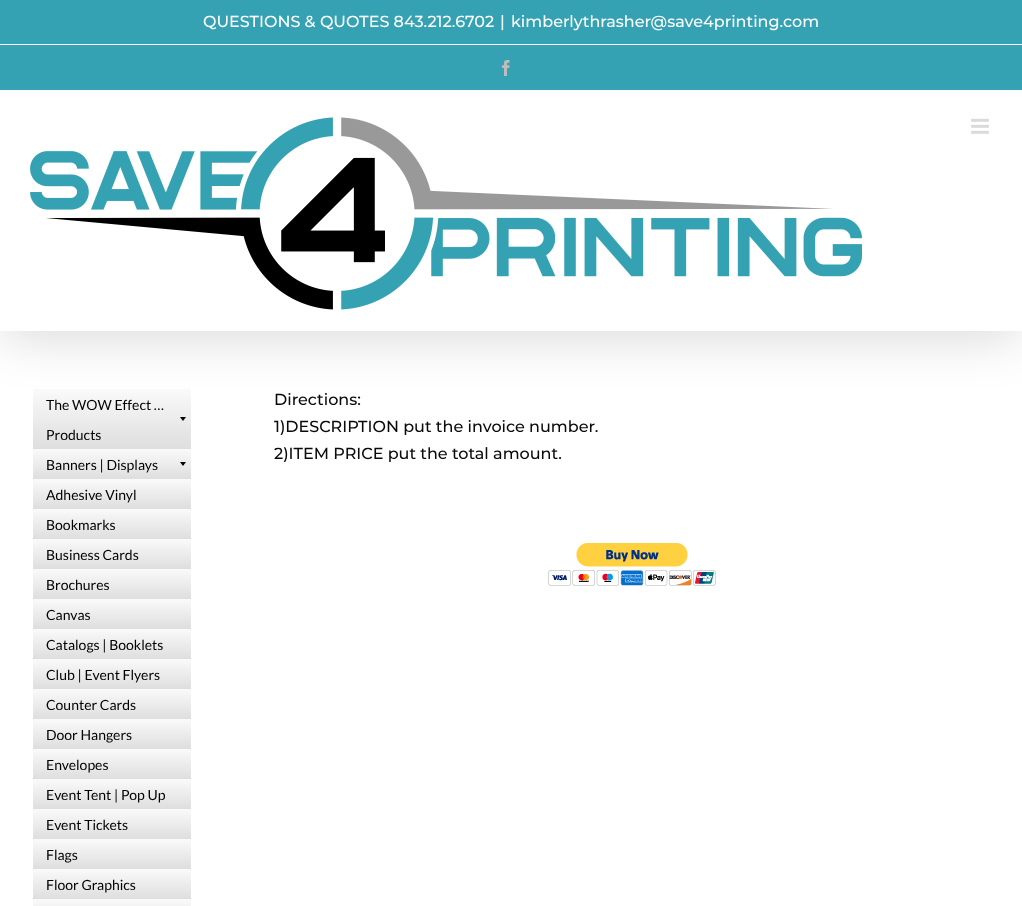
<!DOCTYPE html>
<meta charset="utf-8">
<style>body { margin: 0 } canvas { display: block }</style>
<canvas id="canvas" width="1022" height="906"></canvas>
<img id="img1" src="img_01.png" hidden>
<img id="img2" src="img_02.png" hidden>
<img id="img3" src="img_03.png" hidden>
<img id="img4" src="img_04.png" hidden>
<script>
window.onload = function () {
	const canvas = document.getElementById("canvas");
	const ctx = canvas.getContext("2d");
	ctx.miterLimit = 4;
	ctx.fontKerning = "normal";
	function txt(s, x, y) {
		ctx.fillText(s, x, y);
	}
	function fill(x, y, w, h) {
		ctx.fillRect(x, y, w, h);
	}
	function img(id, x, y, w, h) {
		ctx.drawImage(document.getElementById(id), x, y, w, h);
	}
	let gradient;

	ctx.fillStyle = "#FFFFFF";
	fill(0, 0, 1022, 906);
	gradient = ctx.createLinearGradient(112, 389, 112, 449);
	gradient.addColorStop(0, "#FAFAFA");
	gradient.addColorStop(1, "#DEDEDE");
	ctx.fillStyle = gradient;
	fill(33, 389, 158, 60);
	ctx.fillStyle = "rgba(0, 0, 0, 0.14)";
	ctx.filter = "blur(25px)";
	ctx.beginPath();
	ctx.rect(2, 12, 1018, 327);
	ctx.fill();
	ctx.filter = "none";
	ctx.fillStyle = "#34A2B3";
	fill(0, 0, 1022, 90);
	ctx.fillStyle = "#FFFFFF";
	fill(0, 90, 1022, 241);
	fill(0, 44, 1022, 1);
	img("img1", 502, 60, 8, 16);
	img("img2", 30, 117, 832, 193);
	img("img3", 971, 118, 18, 16);
	ctx.fillStyle = "#000000";
	ctx.beginPath();
	ctx.moveTo(180, 417);
	ctx.lineTo(186, 417);
	ctx.lineTo(183, 421);
	ctx.closePath();
	ctx.fill();
	gradient = ctx.createLinearGradient(112, 449, 112, 479);
	gradient.addColorStop(0, "#FAFAFA");
	gradient.addColorStop(1, "#DEDEDE");
	ctx.fillStyle = gradient;
	fill(33, 449, 158, 30);
	ctx.fillStyle = "#000000";
	ctx.beginPath();
	ctx.moveTo(180, 462);
	ctx.lineTo(186, 462);
	ctx.lineTo(183, 466);
	ctx.closePath();
	ctx.fill();
	gradient = ctx.createLinearGradient(112, 479, 112, 509);
	gradient.addColorStop(0, "#FAFAFA");
	gradient.addColorStop(1, "#DEDEDE");
	ctx.fillStyle = gradient;
	fill(33, 479, 158, 30);
	gradient = ctx.createLinearGradient(112, 509, 112, 539);
	gradient.addColorStop(0, "#FAFAFA");
	gradient.addColorStop(1, "#DEDEDE");
	ctx.fillStyle = gradient;
	fill(33, 509, 158, 30);
	gradient = ctx.createLinearGradient(112, 539, 112, 569);
	gradient.addColorStop(0, "#FAFAFA");
	gradient.addColorStop(1, "#DEDEDE");
	ctx.fillStyle = gradient;
	fill(33, 539, 158, 30);
	gradient = ctx.createLinearGradient(112, 569, 112, 599);
	gradient.addColorStop(0, "#FAFAFA");
	gradient.addColorStop(1, "#DEDEDE");
	ctx.fillStyle = gradient;
	fill(33, 569, 158, 30);
	gradient = ctx.createLinearGradient(112, 599, 112, 629);
	gradient.addColorStop(0, "#FAFAFA");
	gradient.addColorStop(1, "#DEDEDE");
	ctx.fillStyle = gradient;
	fill(33, 599, 158, 30);
	gradient = ctx.createLinearGradient(112, 629, 112, 659);
	gradient.addColorStop(0, "#FAFAFA");
	gradient.addColorStop(1, "#DEDEDE");
	ctx.fillStyle = gradient;
	fill(33, 629, 158, 30);
	gradient = ctx.createLinearGradient(112, 659, 112, 689);
	gradient.addColorStop(0, "#FAFAFA");
	gradient.addColorStop(1, "#DEDEDE");
	ctx.fillStyle = gradient;
	fill(33, 659, 158, 30);
	gradient = ctx.createLinearGradient(112, 689, 112, 719);
	gradient.addColorStop(0, "#FAFAFA");
	gradient.addColorStop(1, "#DEDEDE");
	ctx.fillStyle = gradient;
	fill(33, 689, 158, 30);
	gradient = ctx.createLinearGradient(112, 719, 112, 749);
	gradient.addColorStop(0, "#FAFAFA");
	gradient.addColorStop(1, "#DEDEDE");
	ctx.fillStyle = gradient;
	fill(33, 719, 158, 30);
	gradient = ctx.createLinearGradient(112, 749, 112, 779);
	gradient.addColorStop(0, "#FAFAFA");
	gradient.addColorStop(1, "#DEDEDE");
	ctx.fillStyle = gradient;
	fill(33, 749, 158, 30);
	gradient = ctx.createLinearGradient(112, 779, 112, 809);
	gradient.addColorStop(0, "#FAFAFA");
	gradient.addColorStop(1, "#DEDEDE");
	ctx.fillStyle = gradient;
	fill(33, 779, 158, 30);
	gradient = ctx.createLinearGradient(112, 809, 112, 839);
	gradient.addColorStop(0, "#FAFAFA");
	gradient.addColorStop(1, "#DEDEDE");
	ctx.fillStyle = gradient;
	fill(33, 809, 158, 30);
	gradient = ctx.createLinearGradient(112, 839, 112, 869);
	gradient.addColorStop(0, "#FAFAFA");
	gradient.addColorStop(1, "#DEDEDE");
	ctx.fillStyle = gradient;
	fill(33, 839, 158, 30);
	gradient = ctx.createLinearGradient(112, 869, 112, 899);
	gradient.addColorStop(0, "#FAFAFA");
	gradient.addColorStop(1, "#DEDEDE");
	ctx.fillStyle = gradient;
	fill(33, 869, 158, 30);
	gradient = ctx.createLinearGradient(112, 899, 112, 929);
	gradient.addColorStop(0, "#FAFAFA");
	gradient.addColorStop(1, "#DEDEDE");
	ctx.fillStyle = gradient;
	fill(33, 899, 158, 7);
	img("img4", 548, 543, 168, 43);
	ctx.font = "500 16px Montserrat";
	ctx.fillStyle = "#FFFFFF";
	txt("QUESTIONS & QUOTES 843.212.6702", 203, 27);
	txt("|", 500, 27);
	txt("kimberlythrasher@save4printing.com", 511, 27);
	ctx.font = "14px Lato";
	ctx.fillStyle = "#000000";
	txt("The WOW Effect …", 46, 410);
	txt("Products", 46, 440);
	txt("Banners | Displays", 46, 470);
	txt("Adhesive Vinyl", 46, 500);
	txt("Bookmarks", 46, 530);
	txt("Business Cards", 46, 560);
	txt("Brochures", 46, 590);
	txt("Canvas", 46, 620);
	txt("Catalogs | Booklets", 46, 650);
	txt("Club | Event Flyers", 46, 680);
	txt("Counter Cards", 46, 710);
	txt("Door Hangers", 46, 740);
	txt("Envelopes", 46, 770);
	txt("Event Tent | Pop Up", 46, 800);
	txt("Event Tickets", 46, 830);
	txt("Flags", 46, 860);
	txt("Floor Graphics", 46, 890);
	ctx.font = "500 16px Montserrat";
	ctx.fillStyle = "#0A0A0A";
	txt("Directions:", 274, 405);
	txt("1)DESCRIPTION put the invoice number.", 274, 432);
	txt("2)ITEM PRICE put the total amount.", 274, 459);
};
</script>
